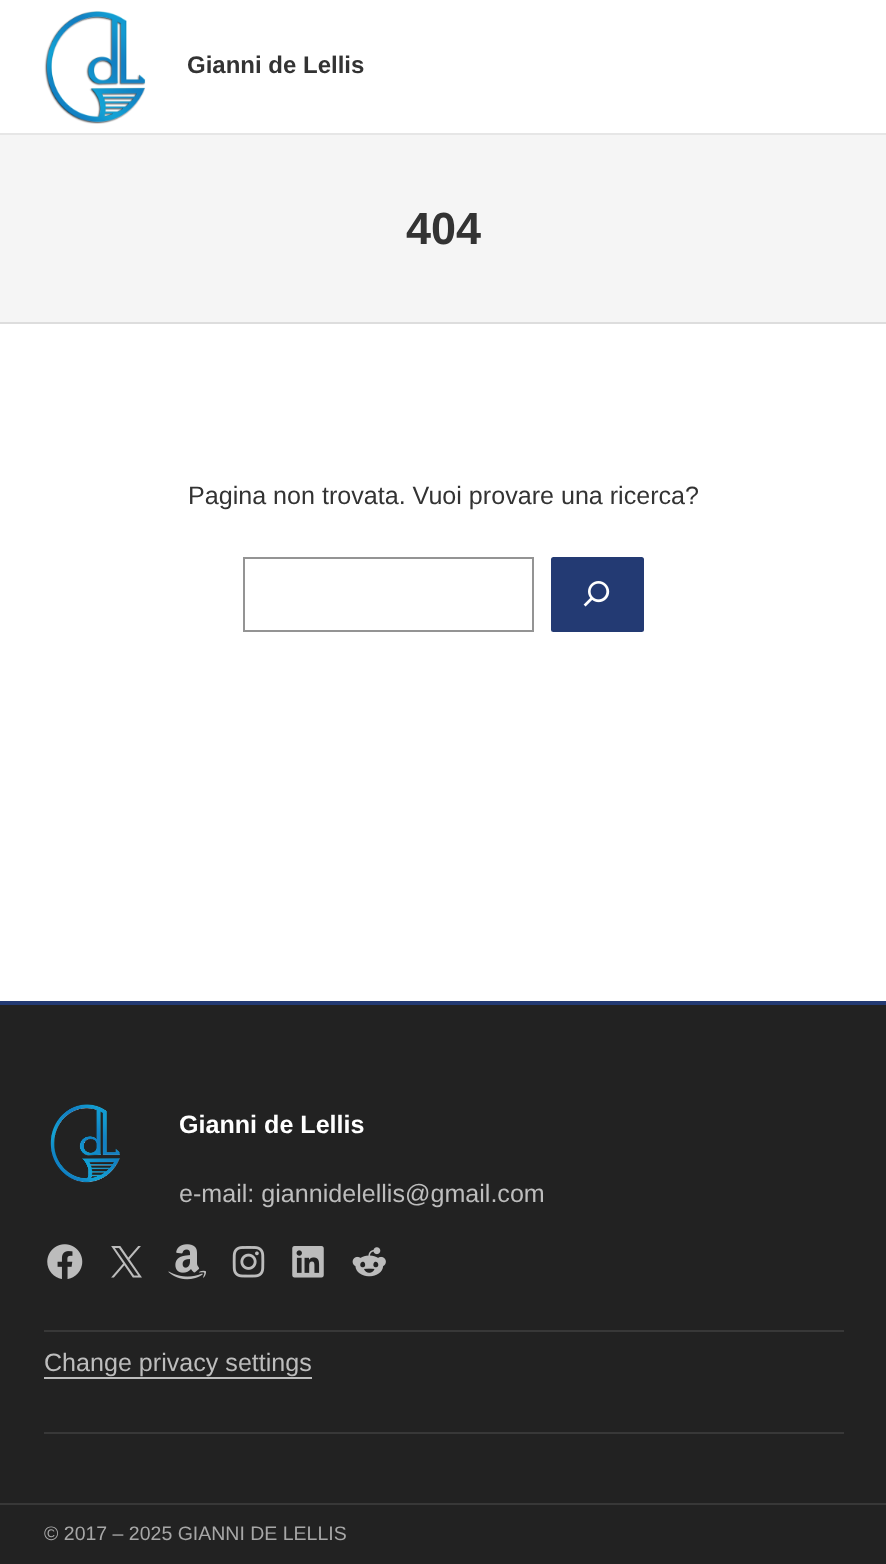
<!DOCTYPE html>
<meta charset="utf-8">
<style>body { margin: 0 } canvas { display: block }</style>
<canvas id="canvas" width="886" height="1564"></canvas>
<img id="img1" src="img_01.png" hidden>
<img id="img2" src="img_02.png" hidden>
<img id="img3" src="img_03.png" hidden>
<img id="img4" src="img_04.png" hidden>
<img id="img5" src="img_05.png" hidden>
<img id="img6" src="img_06.png" hidden>
<img id="img7" src="img_07.png" hidden>
<img id="img8" src="img_08.png" hidden>
<img id="img9" src="img_09.png" hidden>
<script>
window.onload = function () {
	const canvas = document.getElementById("canvas");
	const ctx = canvas.getContext("2d");
	ctx.miterLimit = 4;
	ctx.fontKerning = "normal";
	function txt(s, x, y) {
		ctx.fillText(s, x, y);
	}
	function fill(x, y, w, h) {
		ctx.fillRect(x, y, w, h);
	}
	function round(x, y, w, h, r) {
		ctx.beginPath();
		ctx.roundRect(x, y, w, h, r);
		ctx.fill();
	}
	function img(id, x, y, w, h) {
		ctx.drawImage(document.getElementById(id), x, y, w, h);
	}

	ctx.fillStyle = "#FFFFFF";
	fill(0, 0, 886, 1564);
	img("img1", 44, 11, 102, 113);
	ctx.fillStyle = "#E6E6E6";
	fill(0, 133, 886, 2);
	ctx.fillStyle = "#F5F5F5";
	fill(0, 135, 886, 187);
	ctx.fillStyle = "#DDDDDD";
	fill(0, 322, 886, 2);
	ctx.strokeStyle = "#949494";
	ctx.lineWidth = 2;
	ctx.strokeRect(244, 558, 289, 73);
	ctx.fillStyle = "#233A73";
	round(551, 557, 93, 75, 2.5);
	img("img2", 583, 581, 27, 26);
	ctx.fillStyle = "#222222";
	fill(0, 1005, 886, 559);
	ctx.fillStyle = "#233A73";
	fill(0, 1001, 886, 4);
	img("img3", 50, 1104, 70, 79);
	img("img4", 47, 1244, 36, 35);
	img("img5", 111, 1246, 31, 32);
	img("img6", 168, 1244, 38, 36);
	img("img7", 232, 1246, 33, 32);
	img("img8", 292, 1246, 32, 32);
	img("img9", 352, 1247, 34, 30);
	ctx.fillStyle = "#383838";
	fill(44, 1330, 800, 2);
	ctx.fillStyle = "#BDBDBD";
	fill(44, 1377, 268, 2);
	ctx.fillStyle = "#383838";
	fill(44, 1432, 800, 2);
	fill(0, 1503, 886, 2);
	ctx.font = "bold 24px Liberation Sans";
	ctx.fillStyle = "#333333";
	txt("Gianni de Lellis", 187, 73);
	ctx.font = "bold 45px Liberation Sans";
	txt("404", 406, 244);
	ctx.font = "25.1px Liberation Sans";
	txt("Pagina non trovata. Vuoi provare una ricerca?", 188, 504);
	ctx.font = "bold 25.1px Liberation Sans";
	ctx.fillStyle = "#FFFFFF";
	txt("Gianni de Lellis", 179, 1133);
	ctx.font = "25.1px Liberation Sans";
	ctx.fillStyle = "#BDBDBD";
	txt("e-mail: giannidelellis@gmail.com", 179, 1202);
	txt("Change privacy settings", 44, 1371);
	ctx.font = "19.5px Liberation Sans";
	ctx.fillStyle = "#A7A7A7";
	txt("© 2017 – 2025 GIANNI DE LELLIS", 44, 1540);
};
</script>
